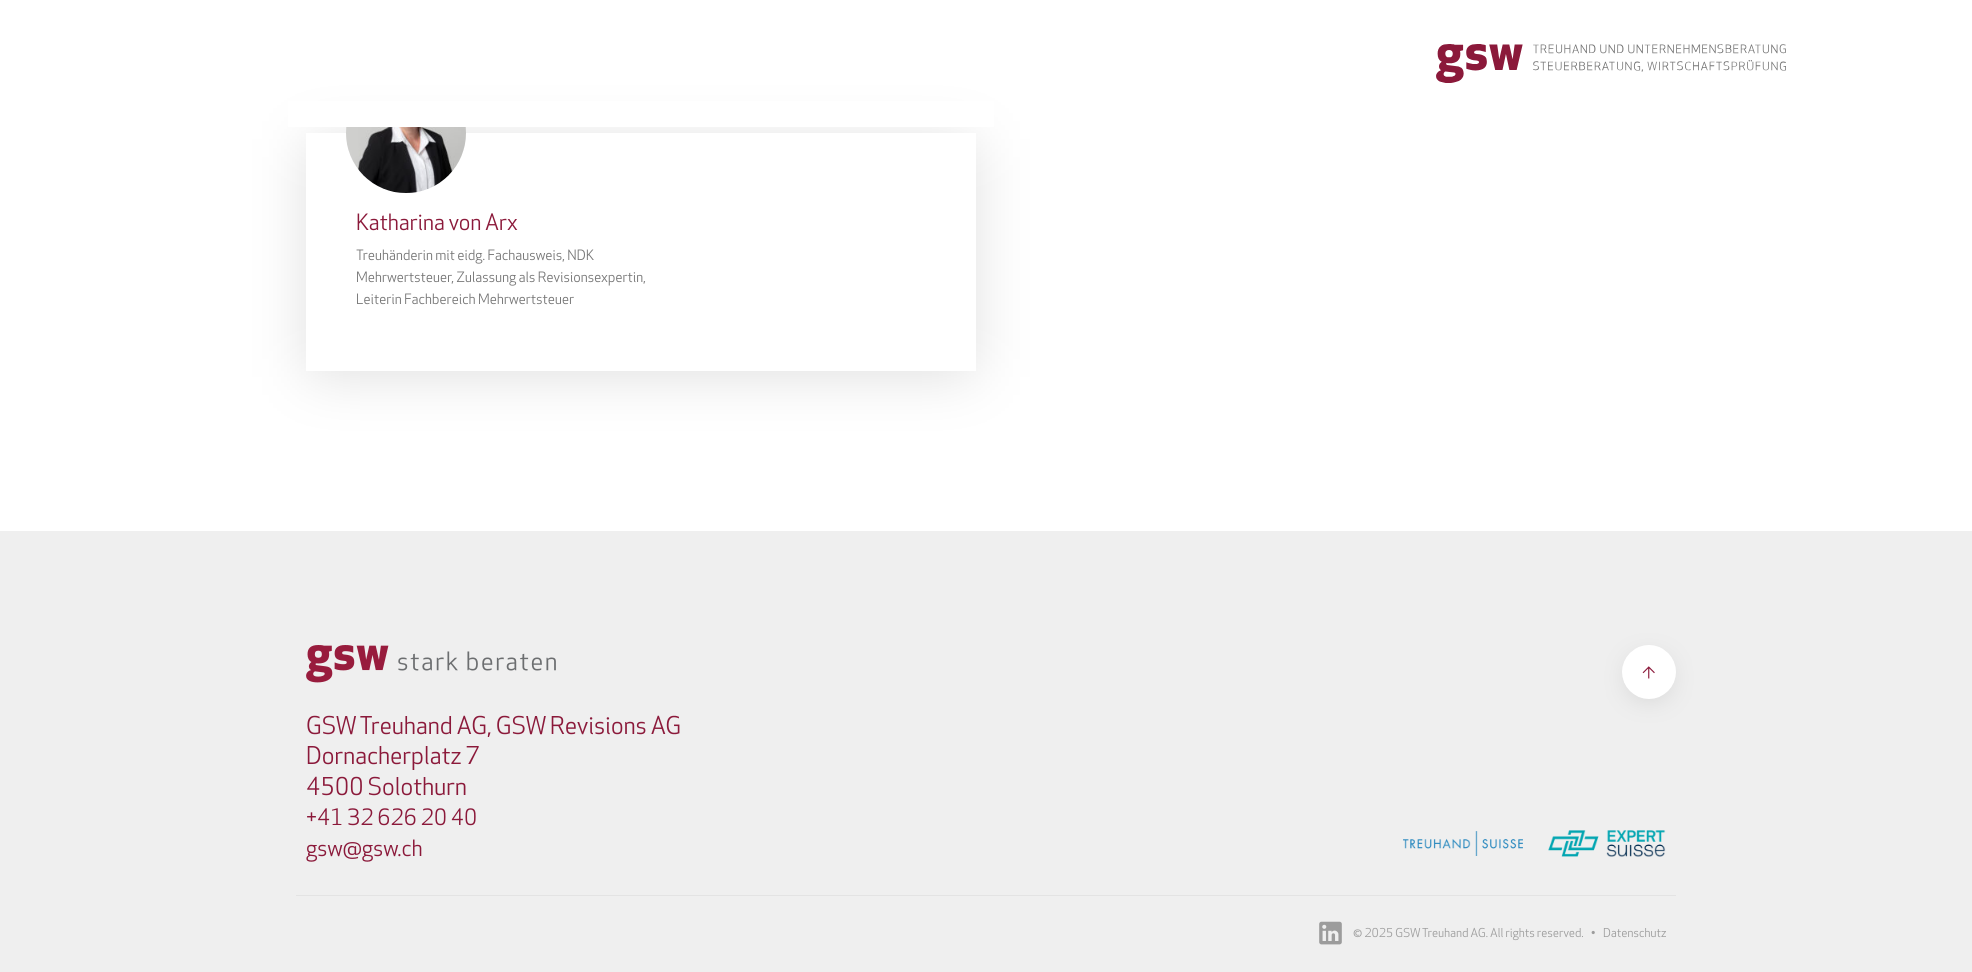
<!DOCTYPE html>
<meta charset="utf-8">
<style>body { margin: 0 } canvas { display: block }</style>
<canvas id="canvas" width="1972" height="972"></canvas>
<img id="img1" src="img_01.png" hidden>
<img id="img2" src="img_02.png" hidden>
<img id="img3" src="img_03.png" hidden>
<img id="img4" src="img_04.png" hidden>
<img id="img5" src="img_05.png" hidden>
<img id="img6" src="img_06.png" hidden>
<img id="img7" src="img_07.png" hidden>
<img id="img8" src="img_08.png" hidden>
<img id="img9" src="img_09.png" hidden>
<img id="img10" src="img_10.png" hidden>
<img id="img11" src="img_11.png" hidden>
<img id="img12" src="img_12.png" hidden>
<img id="img13" src="img_13.png" hidden>
<img id="img14" src="img_14.png" hidden>
<img id="img15" src="img_15.png" hidden>
<img id="img16" src="img_16.png" hidden>
<img id="img17" src="img_17.png" hidden>
<img id="img18" src="img_18.png" hidden>
<img id="img19" src="img_19.png" hidden>
<script>
window.onload = function () {
	const canvas = document.getElementById("canvas");
	const ctx = canvas.getContext("2d");
	ctx.miterLimit = 4;
	ctx.fontKerning = "normal";
	function fill(x, y, w, h) {
		ctx.fillRect(x, y, w, h);
	}
	function img(id, x, y, w, h) {
		ctx.drawImage(document.getElementById(id), x, y, w, h);
	}

	ctx.fillStyle = "#FFFFFF";
	fill(0, 0, 1972, 972);
	ctx.save();
	ctx.beginPath();
	ctx.moveTo(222, 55);
	ctx.lineTo(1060, 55);
	ctx.lineTo(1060, 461);
	ctx.lineTo(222, 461);
	ctx.closePath();
	ctx.moveTo(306, 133);
	ctx.lineTo(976, 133);
	ctx.lineTo(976, 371);
	ctx.lineTo(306, 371);
	ctx.closePath();
	ctx.clip("evenodd");
	ctx.fillStyle = "rgba(0, 0, 0, 0.12)";
	ctx.filter = "blur(27.5px)";
	ctx.beginPath();
	ctx.rect(306, 139, 670, 238);
	ctx.fill();
	ctx.filter = "none";
	ctx.restore();
	fill(288, 101, 706, 26);
	img("img1", 1436, 44, 350, 39);
	img("img2", 357, 213, 161, 18);
	img("img3", 356, 249, 238, 15);
	img("img4", 357, 271, 289, 15);
	img("img5", 357, 293, 217, 12);
	img("img6", 346, 127, 120, 66);
	ctx.fillStyle = "#EFEFEF";
	fill(0, 531, 1972, 441);
	img("img7", 306, 645, 250, 38);
	ctx.fillStyle = "rgba(0, 0, 0, 0.2)";
	ctx.filter = "blur(15px)";
	ctx.beginPath();
	ctx.roundRect(1632, 661, 34, 34, 17);
	ctx.fill();
	ctx.filter = "none";
	ctx.fillStyle = "#FFFFFF";
	ctx.beginPath();
	ctx.arc(1649, 672, 27, 0, Math.PI * 2);
	ctx.fill();
	img("img8", 1642, 666, 13, 13);
	ctx.fillStyle = "#E3E3E3";
	fill(296, 895, 1380, 1);
	img("img9", 307, 715, 373, 22);
	img("img10", 307, 746, 172, 24);
	img("img11", 307, 776, 159, 20);
	img("img12", 307, 808, 169, 18);
	img("img13", 306, 839, 116, 23);
	img("img14", 1403, 831, 120, 25);
	img("img15", 1548, 830, 118, 27);
	img("img16", 1319, 921, 23, 24);
	img("img17", 1353, 927, 230, 14);
	img("img18", 1591, 930, 4, 5);
	img("img19", 1603, 928, 63, 10);
};
</script>
